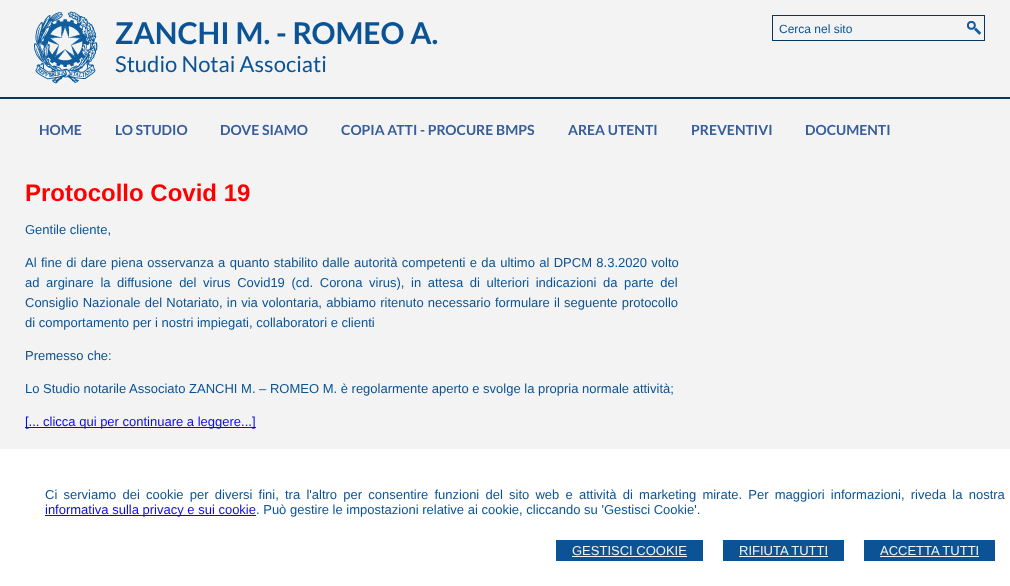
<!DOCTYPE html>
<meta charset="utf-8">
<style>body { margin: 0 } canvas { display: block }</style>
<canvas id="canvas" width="1010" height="586"></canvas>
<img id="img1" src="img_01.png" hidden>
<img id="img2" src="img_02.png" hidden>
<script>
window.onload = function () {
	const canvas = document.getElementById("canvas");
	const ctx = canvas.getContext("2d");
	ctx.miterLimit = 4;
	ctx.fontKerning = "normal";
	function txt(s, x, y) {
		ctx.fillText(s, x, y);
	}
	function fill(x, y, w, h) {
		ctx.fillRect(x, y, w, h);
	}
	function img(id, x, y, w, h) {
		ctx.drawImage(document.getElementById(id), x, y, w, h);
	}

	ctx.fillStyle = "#F3F3F3";
	fill(0, 0, 1010, 586);
	ctx.fillStyle = "#073763";
	fill(0, 97, 1010, 2);
	img("img1", 34, 11, 64, 73);
	ctx.strokeStyle = "#073763";
	ctx.strokeRect(772.5, 15.5, 212, 25);
	img("img2", 967, 21, 14, 14);
	ctx.fillStyle = "#0C0CDF";
	fill(25, 427, 231, 1);
	ctx.fillStyle = "#FFFFFF";
	fill(0, 449, 1010, 137);
	ctx.fillStyle = "#0C0CDF";
	fill(45, 515, 211, 1);
	ctx.fillStyle = "#0B5394";
	fill(556, 540, 147, 21);
	ctx.fillStyle = "#F3F3F3";
	fill(572, 556, 115, 1);
	ctx.fillStyle = "#0B5394";
	fill(723, 540, 121, 21);
	ctx.fillStyle = "#F3F3F3";
	fill(739, 556, 89, 1);
	ctx.fillStyle = "#0B5394";
	fill(864, 540, 131, 21);
	ctx.fillStyle = "#F3F3F3";
	fill(880, 556, 99, 1);
	ctx.font = "bold 30px Lato";
	ctx.fillStyle = "#0B5394";
	txt("ZANCHI M. - ROMEO A.", 115, 44);
	ctx.font = "22px Lato";
	txt("Studio Notai Associati", 115, 72);
	ctx.font = "12px Liberation Sans";
	txt("Cerca nel sito", 779, 33);
	ctx.font = "bold 14px Lato";
	ctx.fillStyle = "#375D9B";
	txt("HOME", 39, 135);
	txt("LO STUDIO", 115, 135);
	txt("DOVE SIAMO", 220, 135);
	txt("COPIA ATTI - PROCURE BMPS", 341, 135);
	txt("AREA UTENTI", 568, 135);
	txt("PREVENTIVI", 691, 135);
	txt("DOCUMENTI", 805, 135);
	ctx.font = "bold 24px Liberation Sans";
	ctx.fillStyle = "#FF0000";
	txt("Protocollo Covid 19", 25, 201);
	ctx.font = "13px Liberation Sans";
	ctx.fillStyle = "#0B5394";
	txt("Gentile cliente,", 25, 234);
	ctx.wordSpacing = "0.75px";
	txt("Al fine di dare piena osservanza a quanto stabilito dalle autorità competenti e da ultimo al DPCM 8.3.2020 volto", 25, 267);
	ctx.wordSpacing = "3px";
	txt("ad arginare la diffusione del virus Covid19 (cd. Corona virus), in attesa di ulteriori indicazioni da parte del", 25, 287);
	ctx.wordSpacing = "0.6px";
	txt("Consiglio Nazionale del Notariato, in via volontaria, abbiamo ritenuto necessario formulare il seguente protocollo", 25, 307);
	ctx.wordSpacing = "0px";
	txt("di comportamento per i nostri impiegati, collaboratori e clienti", 25, 327);
	txt("Premesso che:", 25, 360);
	txt("Lo Studio notarile Associato ZANCHI M. – ROMEO M. è regolarmente aperto e svolge la propria normale attività;", 25, 393);
	ctx.fillStyle = "#0C0CDF";
	txt("[... clicca qui per continuare a leggere...]", 25, 426);
	ctx.wordSpacing = "2.6px";
	ctx.fillStyle = "#0B5394";
	txt("Ci serviamo dei cookie per diversi fini, tra l'altro per consentire funzioni del sito web e attività di marketing mirate. Per maggiori informazioni, riveda la nostra", 45, 499);
	ctx.wordSpacing = "0px";
	ctx.fillStyle = "#0C0CDF";
	txt("informativa sulla privacy e sui cookie", 45, 514);
	ctx.fillStyle = "#0B5394";
	txt(". Può gestire le impostazioni relative ai cookie, cliccando su 'Gestisci Cookie'.", 256, 514);
	ctx.fillStyle = "#F3F3F3";
	txt("GESTISCI COOKIE", 572, 555);
	txt("RIFIUTA TUTTI", 739, 555);
	txt("ACCETTA TUTTI", 880, 555);
};
</script>
